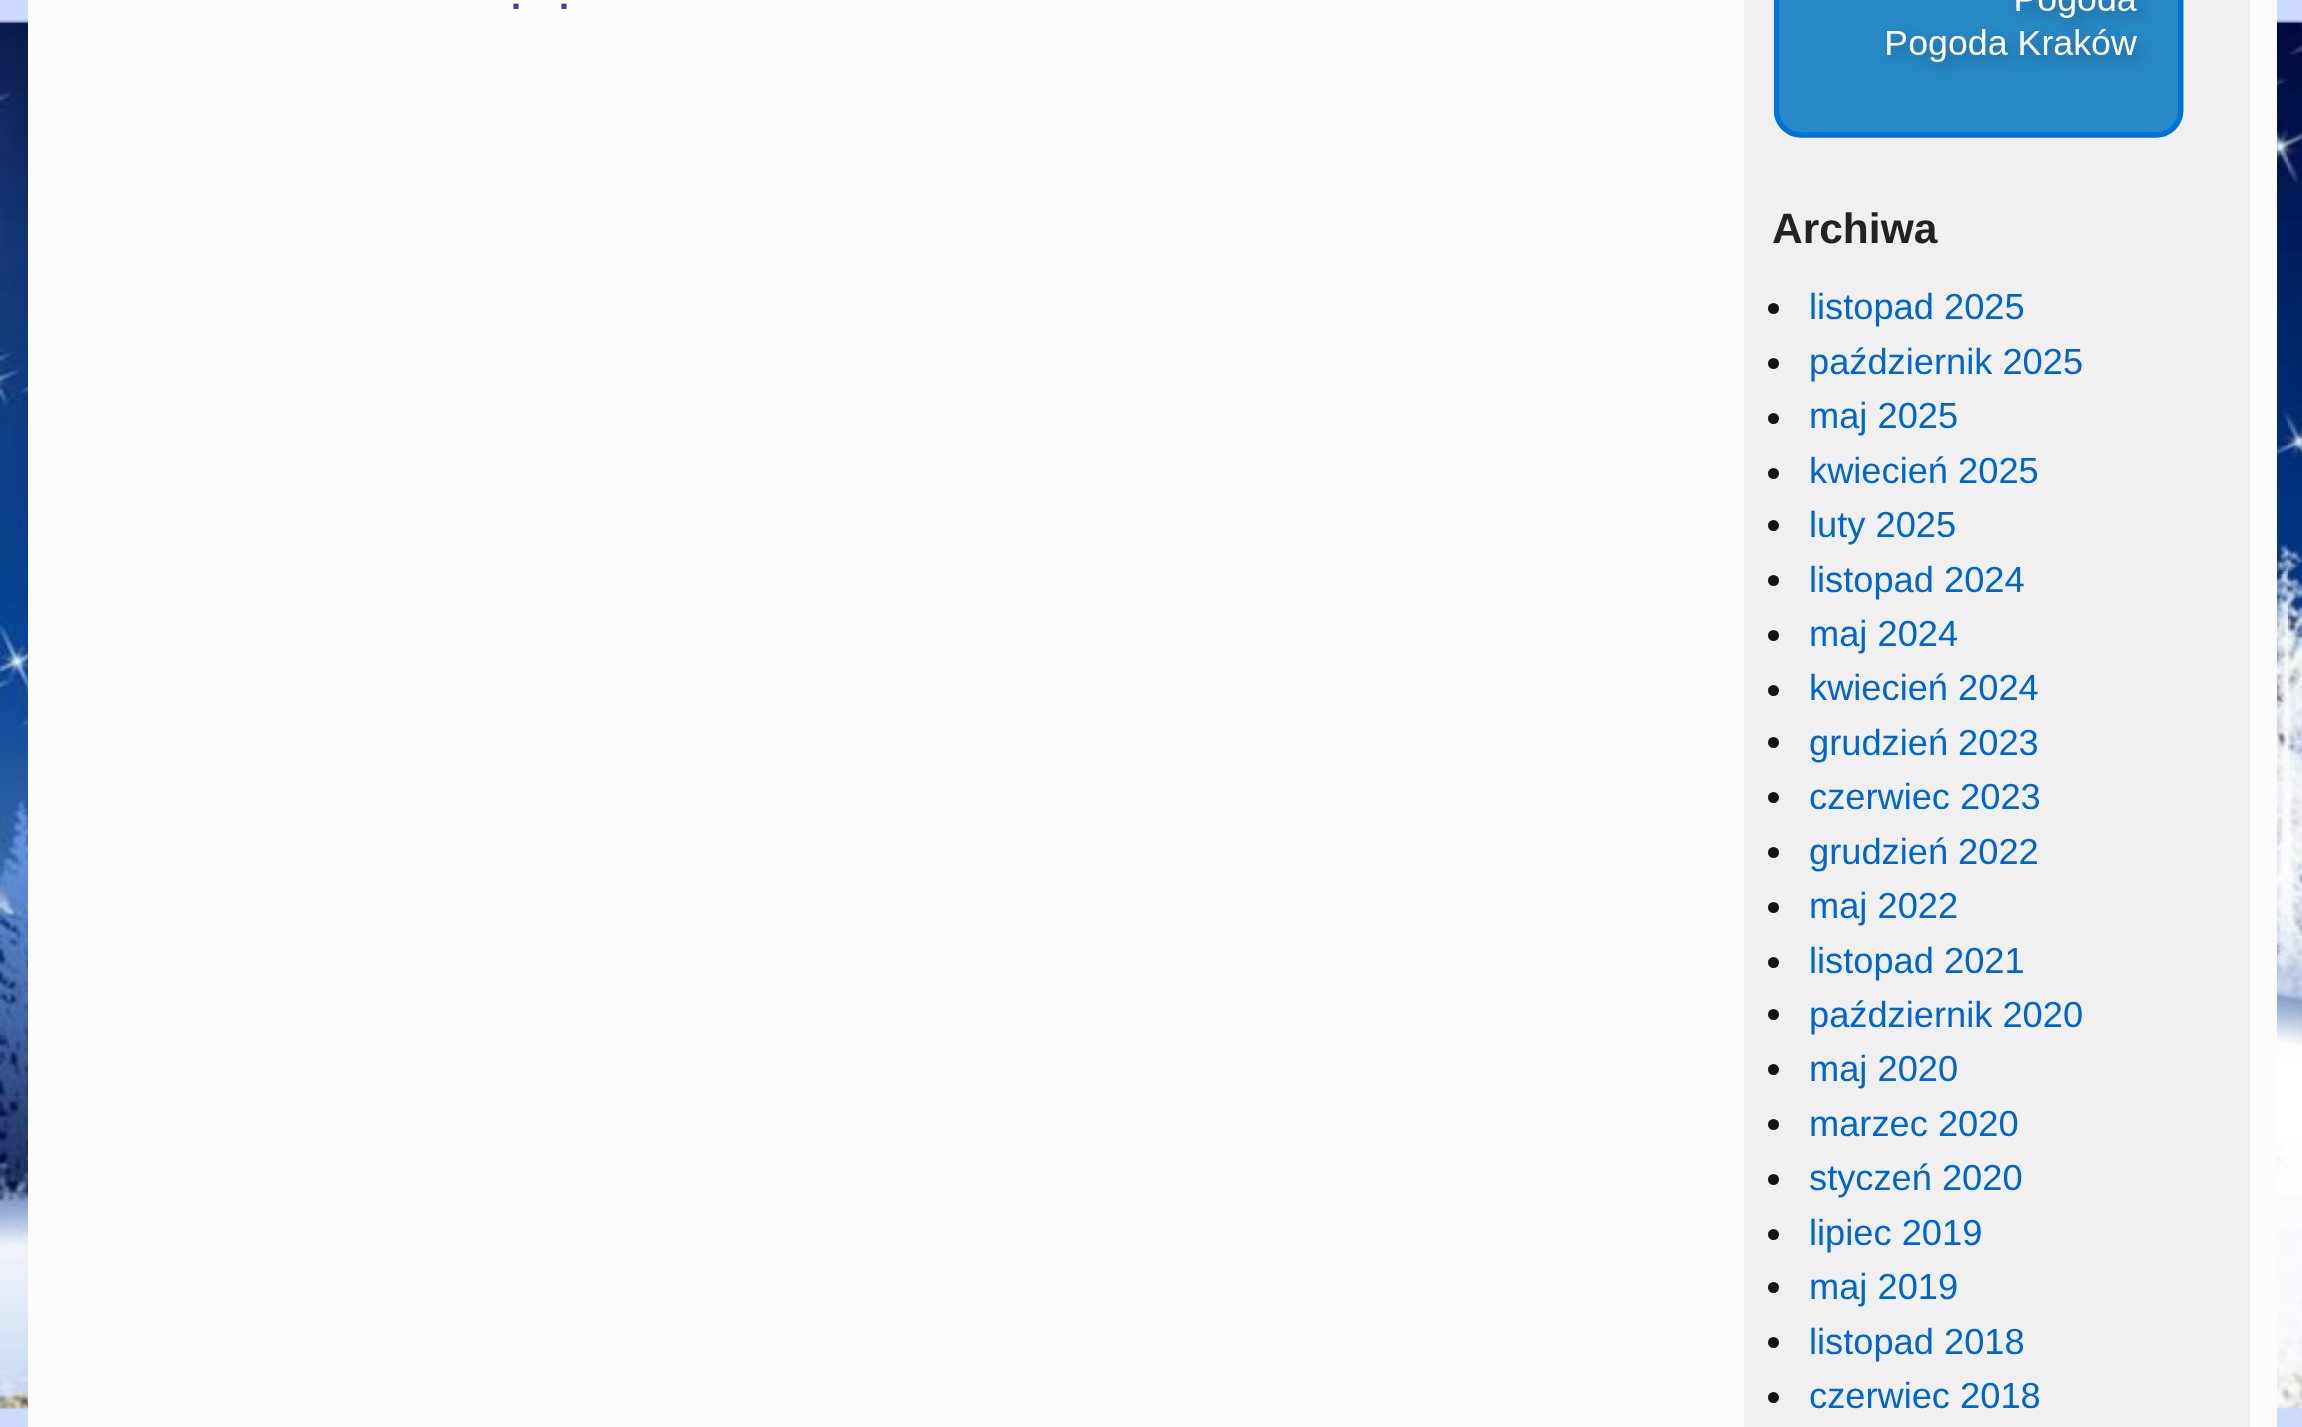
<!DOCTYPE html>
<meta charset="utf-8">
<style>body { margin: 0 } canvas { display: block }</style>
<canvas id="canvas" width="2302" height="1427"></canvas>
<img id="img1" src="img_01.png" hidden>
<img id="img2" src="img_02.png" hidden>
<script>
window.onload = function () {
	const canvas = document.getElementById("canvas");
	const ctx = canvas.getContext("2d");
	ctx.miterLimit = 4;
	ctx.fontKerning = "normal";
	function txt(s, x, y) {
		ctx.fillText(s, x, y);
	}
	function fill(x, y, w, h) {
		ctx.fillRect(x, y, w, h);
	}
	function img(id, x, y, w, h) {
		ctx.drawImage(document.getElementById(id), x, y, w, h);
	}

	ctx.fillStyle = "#CCDAFF";
	fill(0, 0, 2302, 1427);
	img("img1", 0, 19, 2302, 1391);
	ctx.fillStyle = "#FCFCFC";
	fill(28, 0, 2249, 1427);
	ctx.fillStyle = "#F0F0F0";
	fill(1744, 0, 506, 1427);
	img("img2", 1773, 0, 411, 138);
	ctx.fillStyle = "#141414";
	ctx.beginPath();
	ctx.arc(1773.5, 308.5, 5.5, 0, Math.PI * 2);
	ctx.fill();
	ctx.beginPath();
	ctx.arc(1773.5, 363.5, 5.5, 0, Math.PI * 2);
	ctx.fill();
	ctx.beginPath();
	ctx.arc(1773.5, 418.5, 5.5, 0, Math.PI * 2);
	ctx.fill();
	ctx.beginPath();
	ctx.arc(1773.5, 473.5, 5.5, 0, Math.PI * 2);
	ctx.fill();
	ctx.beginPath();
	ctx.arc(1773.5, 525.5, 5.5, 0, Math.PI * 2);
	ctx.fill();
	ctx.beginPath();
	ctx.arc(1773.5, 580.5, 5.5, 0, Math.PI * 2);
	ctx.fill();
	ctx.beginPath();
	ctx.arc(1773.5, 635.5, 5.5, 0, Math.PI * 2);
	ctx.fill();
	ctx.beginPath();
	ctx.arc(1773.5, 690.5, 5.5, 0, Math.PI * 2);
	ctx.fill();
	ctx.beginPath();
	ctx.arc(1773.5, 742.5, 5.5, 0, Math.PI * 2);
	ctx.fill();
	ctx.beginPath();
	ctx.arc(1773.5, 797.5, 5.5, 0, Math.PI * 2);
	ctx.fill();
	ctx.beginPath();
	ctx.arc(1773.5, 852.5, 5.5, 0, Math.PI * 2);
	ctx.fill();
	ctx.beginPath();
	ctx.arc(1773.5, 907.5, 5.5, 0, Math.PI * 2);
	ctx.fill();
	ctx.beginPath();
	ctx.arc(1773.5, 962.5, 5.5, 0, Math.PI * 2);
	ctx.fill();
	ctx.beginPath();
	ctx.arc(1773.5, 1014.5, 5.5, 0, Math.PI * 2);
	ctx.fill();
	ctx.beginPath();
	ctx.arc(1773.5, 1069.5, 5.5, 0, Math.PI * 2);
	ctx.fill();
	ctx.beginPath();
	ctx.arc(1773.5, 1124.5, 5.5, 0, Math.PI * 2);
	ctx.fill();
	ctx.beginPath();
	ctx.arc(1773.5, 1179.5, 5.5, 0, Math.PI * 2);
	ctx.fill();
	ctx.beginPath();
	ctx.arc(1773.5, 1234.5, 5.5, 0, Math.PI * 2);
	ctx.fill();
	ctx.beginPath();
	ctx.arc(1773.5, 1287.5, 5.5, 0, Math.PI * 2);
	ctx.fill();
	ctx.beginPath();
	ctx.arc(1773.5, 1342.5, 5.5, 0, Math.PI * 2);
	ctx.fill();
	ctx.beginPath();
	ctx.arc(1773.5, 1397.5, 5.5, 0, Math.PI * 2);
	ctx.fill();
	ctx.font = "bold 36px Liberation Sans";
	ctx.fillStyle = "#3C3CB3";
	txt(".", 511, 9);
	txt(".", 559, 9);
	ctx.font = "bold 42.5px Liberation Sans";
	ctx.fillStyle = "#222222";
	txt("Archiwa", 1772, 243);
	ctx.font = "36.25px Liberation Sans";
	ctx.fillStyle = "#0066CC";
	txt("listopad 2025", 1809, 319);
	txt("październik 2025", 1809, 374);
	txt("maj 2025", 1809, 428);
	txt("kwiecień 2025", 1809, 483);
	txt("luty 2025", 1809, 537);
	txt("listopad 2024", 1809, 592);
	txt("maj 2024", 1809, 646);
	txt("kwiecień 2024", 1809, 700);
	txt("grudzień 2023", 1809, 755);
	txt("czerwiec 2023", 1809, 809);
	txt("grudzień 2022", 1809, 864);
	txt("maj 2022", 1809, 918);
	txt("listopad 2021", 1809, 973);
	txt("październik 2020", 1809, 1027);
	txt("maj 2020", 1809, 1081);
	txt("marzec 2020", 1809, 1136);
	txt("styczeń 2020", 1809, 1190);
	txt("lipiec 2019", 1809, 1245);
	txt("maj 2019", 1809, 1299);
	txt("listopad 2018", 1809, 1354);
	txt("czerwiec 2018", 1809, 1408);
};
</script>
